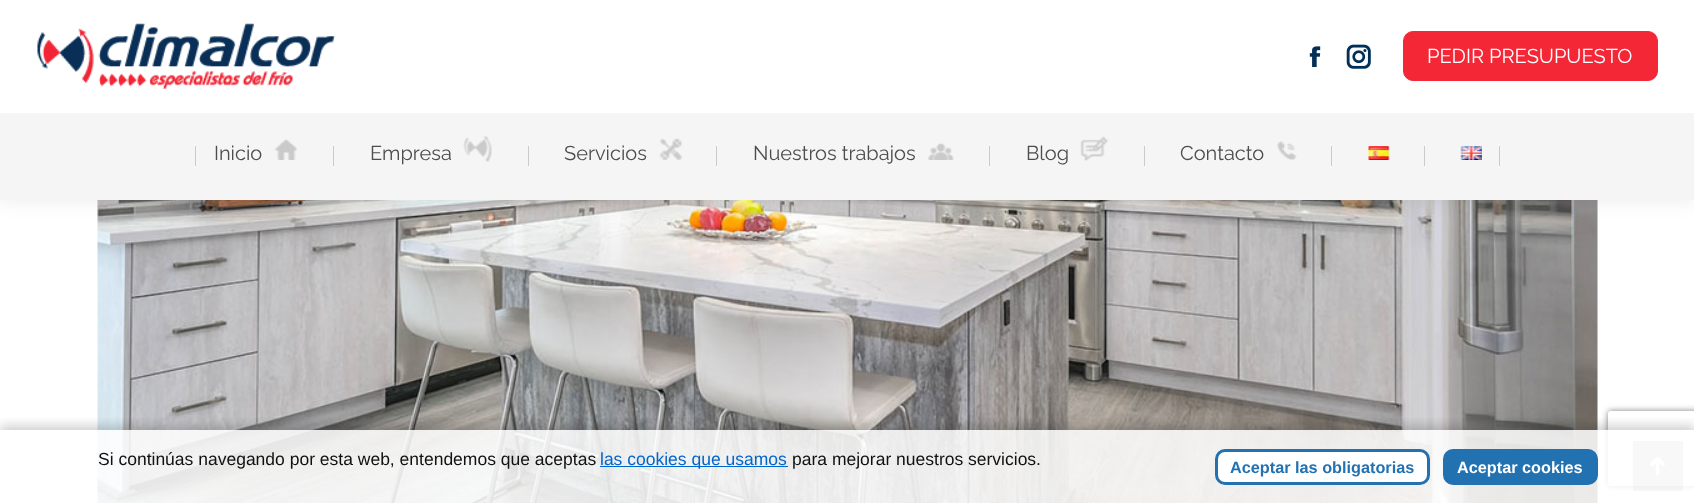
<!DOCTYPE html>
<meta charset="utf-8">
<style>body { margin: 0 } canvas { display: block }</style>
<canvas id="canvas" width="1694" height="503"></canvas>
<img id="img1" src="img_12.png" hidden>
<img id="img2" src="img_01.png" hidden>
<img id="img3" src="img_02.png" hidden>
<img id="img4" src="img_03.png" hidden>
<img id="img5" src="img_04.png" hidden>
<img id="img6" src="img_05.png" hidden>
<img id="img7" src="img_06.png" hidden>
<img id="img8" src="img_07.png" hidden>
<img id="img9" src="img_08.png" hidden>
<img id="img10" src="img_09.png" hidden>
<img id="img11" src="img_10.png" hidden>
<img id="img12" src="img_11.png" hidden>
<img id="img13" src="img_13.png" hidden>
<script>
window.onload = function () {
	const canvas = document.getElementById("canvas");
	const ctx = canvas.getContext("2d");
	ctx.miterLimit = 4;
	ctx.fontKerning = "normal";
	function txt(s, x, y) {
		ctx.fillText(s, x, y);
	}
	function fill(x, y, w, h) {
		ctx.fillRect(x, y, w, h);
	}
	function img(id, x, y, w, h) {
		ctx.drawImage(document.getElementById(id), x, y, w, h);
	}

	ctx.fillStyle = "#FFFFFF";
	fill(0, 0, 1694, 503);
	img("img1", 97, 200, 1501, 303);
	ctx.fillStyle = "rgba(0, 0, 0, 0.07)";
	ctx.filter = "blur(9.5px)";
	ctx.beginPath();
	ctx.rect(-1, -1, 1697, 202);
	ctx.fill();
	ctx.filter = "none";
	ctx.fillStyle = "#FFFFFF";
	fill(0, 0, 1694, 113);
	img("img2", 37, 23, 298, 66);
	img("img3", 1309, 46, 12, 21);
	img("img4", 1346, 44, 25, 25);
	ctx.fillStyle = "#F32735";
	ctx.beginPath();
	ctx.roundRect(1403.5, 31.5, 254, 49, 9.5);
	ctx.fill();
	ctx.strokeStyle = "#F32735";
	ctx.stroke();
	ctx.fillStyle = "#F5F5F5";
	fill(0, 113, 1694, 87);
	ctx.fillStyle = "#CBCBCB";
	fill(195, 146, 1, 20);
	img("img5", 274, 139, 23, 21);
	fill(333, 146, 1, 20);
	img("img6", 463, 136, 29, 26);
	fill(528, 146, 1, 20);
	img("img7", 659, 138, 23, 22);
	fill(716, 146, 1, 20);
	img("img8", 928, 143, 26, 17);
	fill(989, 146, 1, 20);
	img("img9", 1080, 136, 28, 25);
	fill(1144, 146, 1, 20);
	img("img10", 1277, 141, 20, 19);
	fill(1331, 146, 1, 20);
	img("img11", 1368, 146, 22, 14);
	fill(1424, 146, 1, 20);
	img("img12", 1460, 146, 22, 14);
	fill(1499, 146, 1, 20);
	ctx.save();
	ctx.beginPath();
	ctx.moveTo(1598, 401);
	ctx.lineTo(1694, 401);
	ctx.lineTo(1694, 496);
	ctx.lineTo(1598, 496);
	ctx.closePath();
	ctx.moveTo(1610.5, 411);
	ctx.lineTo(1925.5, 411);
	ctx.bezierCurveTo(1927, 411, 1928, 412, 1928, 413.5);
	ctx.lineTo(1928, 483.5);
	ctx.bezierCurveTo(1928, 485, 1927, 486, 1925.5, 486);
	ctx.lineTo(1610.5, 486);
	ctx.bezierCurveTo(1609, 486, 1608, 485, 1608, 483.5);
	ctx.lineTo(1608, 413.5);
	ctx.bezierCurveTo(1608, 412, 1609, 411, 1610.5, 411);
	ctx.closePath();
	ctx.clip("evenodd");
	ctx.fillStyle = "#808080";
	ctx.filter = "blur(3px)";
	ctx.beginPath();
	ctx.roundRect(1608, 411, 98, 75, 2.5);
	ctx.fill();
	ctx.filter = "none";
	ctx.restore();
	ctx.fillStyle = "rgba(0, 0, 0, 0.2)";
	fill(1633, 441, 50, 50);
	img("img13", 1650, 456, 15, 20);
	ctx.save();
	ctx.beginPath();
	ctx.rect(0, 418, 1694, 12);
	ctx.clip();
	ctx.filter = "blur(6px)";
	ctx.beginPath();
	ctx.rect(0, 426, 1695, 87);
	ctx.fill();
	ctx.filter = "none";
	ctx.restore();
	ctx.fillStyle = "rgba(255, 255, 255, 0.85)";
	fill(97, 430, 1597, 73);
	ctx.fillStyle = "#0066CC";
	fill(600, 466, 188, 1);
	ctx.fillStyle = "#FFFFFF";
	ctx.beginPath();
	ctx.roundRect(1216.5, 450.5, 212, 33, 8.5);
	ctx.fill();
	ctx.strokeStyle = "#2271B1";
	ctx.lineWidth = 3;
	ctx.stroke();
	ctx.fillStyle = "#2271B1";
	ctx.beginPath();
	ctx.roundRect(1444.5, 450.5, 152, 33, 8.5);
	ctx.fill();
	ctx.stroke();
	ctx.font = "20px Raleway";
	ctx.fillStyle = "#FFFFFF";
	txt("PEDIR PRESUPUESTO", 1427, 63);
	ctx.fillStyle = "#4D4D4D";
	txt("Inicio", 214, 160);
	txt("Empresa", 370, 160);
	txt("Servicios", 564, 160);
	txt("Nuestros trabajos", 753, 160);
	txt("Blog", 1026, 160);
	txt("Contacto", 1180, 160);
	ctx.font = "17.5px Liberation Sans";
	ctx.fillStyle = "#111111";
	txt("Si continúas navegando por esta web, entendemos que aceptas", 98, 465);
	ctx.fillStyle = "#0066CC";
	txt("las cookies que usamos", 600, 465);
	ctx.fillStyle = "#111111";
	txt("para mejorar nuestros servicios.", 792, 465);
	ctx.font = "bold 16.25px Liberation Sans";
	ctx.fillStyle = "#2271B1";
	txt("Aceptar las obligatorias", 1230, 473);
	ctx.fillStyle = "#FFFFFF";
	txt("Aceptar cookies", 1457, 473);
};
</script>
